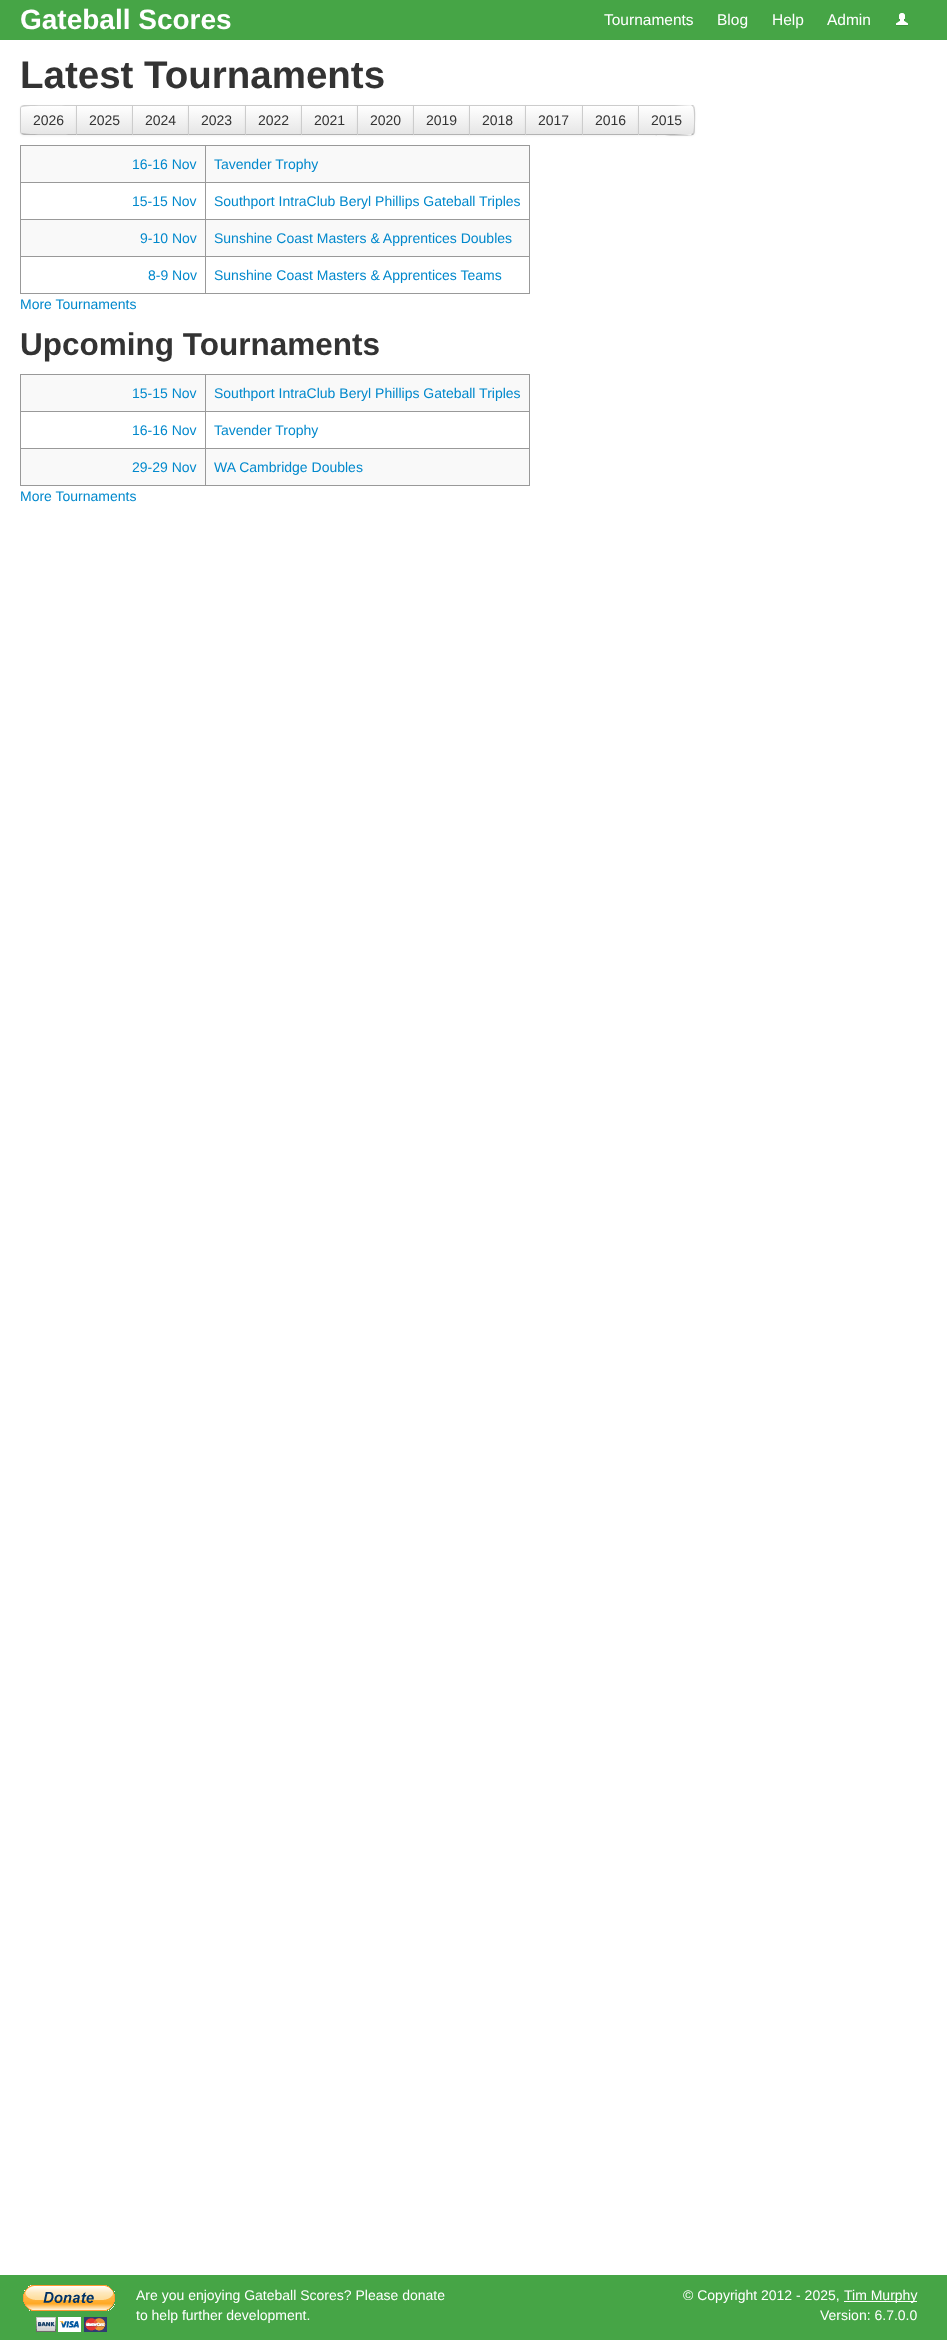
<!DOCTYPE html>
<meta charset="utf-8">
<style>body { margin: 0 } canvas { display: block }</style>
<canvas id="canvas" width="947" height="2340"></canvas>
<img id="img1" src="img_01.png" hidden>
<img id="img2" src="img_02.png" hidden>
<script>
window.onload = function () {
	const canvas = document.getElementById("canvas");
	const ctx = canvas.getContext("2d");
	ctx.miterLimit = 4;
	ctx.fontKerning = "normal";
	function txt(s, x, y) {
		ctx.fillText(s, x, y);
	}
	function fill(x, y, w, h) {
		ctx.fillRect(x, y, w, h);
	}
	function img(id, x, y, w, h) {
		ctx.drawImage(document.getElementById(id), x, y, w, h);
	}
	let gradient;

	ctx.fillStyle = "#FFFFFF";
	fill(0, 0, 947, 2340);
	ctx.fillStyle = "#46A546";
	fill(0, 0, 947, 40);
	img("img1", 896, 13, 12, 13);
	ctx.fillStyle = "rgba(0, 0, 0, 0.05)";
	ctx.filter = "blur(1px)";
	ctx.beginPath();
	ctx.roundRect(20, 106, 57, 30, 4);
	ctx.fill();
	ctx.filter = "none";
	ctx.fillStyle = "#F5F5F5";
	ctx.beginPath();
	ctx.roundRect(20, 105, 57, 30, [4, 0, 0, 4]);
	ctx.fill();
	ctx.save();
	ctx.beginPath();
	ctx.roundRect(20, 105, 57, 30, [4, 0, 0, 4]);
	ctx.clip();
	gradient = ctx.createLinearGradient(49, 106, 49, 134);
	gradient.addColorStop(0, "#FFFFFF");
	gradient.addColorStop(1, "#E6E6E6");
	ctx.fillStyle = gradient;
	fill(20, 106, 56, 28);
	ctx.restore();
	ctx.fillStyle = "#CCCCCC";
	ctx.beginPath();
	ctx.moveTo(24, 105);
	ctx.lineTo(21, 106);
	ctx.lineTo(22, 107);
	ctx.bezierCurveTo(24, 105, 70, 106, 76, 106);
	ctx.lineTo(77, 105);
	ctx.closePath();
	ctx.fill();
	ctx.fillStyle = "#B3B3B3";
	ctx.beginPath();
	ctx.moveTo(77, 135);
	ctx.lineTo(76, 134);
	ctx.bezierCurveTo(70, 134, 24, 135, 22, 133);
	ctx.lineTo(21, 134);
	ctx.lineTo(24, 135);
	ctx.closePath();
	ctx.fill();
	ctx.fillStyle = "#CCCCCC";
	ctx.beginPath();
	ctx.moveTo(20, 109);
	ctx.lineTo(20, 131);
	ctx.bezierCurveTo(20, 132, 20.5, 133, 21, 134);
	ctx.lineTo(22, 133);
	ctx.bezierCurveTo(21, 133, 21, 132, 21, 131);
	ctx.lineTo(21, 109);
	ctx.bezierCurveTo(21, 108, 21, 107, 22, 107);
	ctx.lineTo(21, 106);
	ctx.bezierCurveTo(20.5, 107, 20, 108, 20, 109);
	ctx.closePath();
	ctx.fill();
	ctx.fillStyle = "rgba(0, 0, 0, 0.05)";
	ctx.filter = "blur(1px)";
	ctx.beginPath();
	ctx.rect(76, 106, 57, 30);
	ctx.fill();
	ctx.filter = "none";
	gradient = ctx.createLinearGradient(105, 106, 105, 134);
	gradient.addColorStop(0, "#FFFFFF");
	gradient.addColorStop(1, "#E6E6E6");
	ctx.fillStyle = gradient;
	fill(77, 106, 55, 28);
	ctx.fillStyle = "#CCCCCC";
	fill(76, 105, 57, 1);
	ctx.fillStyle = "#B3B3B3";
	fill(76, 134, 57, 1);
	ctx.fillStyle = "#CCCCCC";
	fill(76, 105, 1, 30);
	ctx.fillStyle = "rgba(0, 0, 0, 0.05)";
	ctx.filter = "blur(1px)";
	ctx.beginPath();
	ctx.rect(132, 106, 57, 30);
	ctx.fill();
	ctx.filter = "none";
	gradient = ctx.createLinearGradient(161, 106, 161, 134);
	gradient.addColorStop(0, "#FFFFFF");
	gradient.addColorStop(1, "#E6E6E6");
	ctx.fillStyle = gradient;
	fill(133, 106, 55, 28);
	ctx.fillStyle = "#CCCCCC";
	fill(132, 105, 57, 1);
	ctx.fillStyle = "#B3B3B3";
	fill(132, 134, 57, 1);
	ctx.fillStyle = "#CCCCCC";
	fill(132, 105, 1, 30);
	ctx.fillStyle = "rgba(0, 0, 0, 0.05)";
	ctx.filter = "blur(1px)";
	ctx.beginPath();
	ctx.rect(188, 106, 58, 30);
	ctx.fill();
	ctx.filter = "none";
	gradient = ctx.createLinearGradient(217, 106, 217, 134);
	gradient.addColorStop(0, "#FFFFFF");
	gradient.addColorStop(1, "#E6E6E6");
	ctx.fillStyle = gradient;
	fill(189, 106, 56, 28);
	ctx.fillStyle = "#CCCCCC";
	fill(188, 105, 58, 1);
	ctx.fillStyle = "#B3B3B3";
	fill(188, 134, 58, 1);
	ctx.fillStyle = "#CCCCCC";
	fill(188, 105, 1, 30);
	ctx.fillStyle = "rgba(0, 0, 0, 0.05)";
	ctx.filter = "blur(1px)";
	ctx.beginPath();
	ctx.rect(245, 106, 57, 30);
	ctx.fill();
	ctx.filter = "none";
	gradient = ctx.createLinearGradient(274, 106, 274, 134);
	gradient.addColorStop(0, "#FFFFFF");
	gradient.addColorStop(1, "#E6E6E6");
	ctx.fillStyle = gradient;
	fill(246, 106, 55, 28);
	ctx.fillStyle = "#CCCCCC";
	fill(245, 105, 57, 1);
	ctx.fillStyle = "#B3B3B3";
	fill(245, 134, 57, 1);
	ctx.fillStyle = "#CCCCCC";
	fill(245, 105, 1, 30);
	ctx.fillStyle = "rgba(0, 0, 0, 0.05)";
	ctx.filter = "blur(1px)";
	ctx.beginPath();
	ctx.rect(301, 106, 57, 30);
	ctx.fill();
	ctx.filter = "none";
	gradient = ctx.createLinearGradient(330, 106, 330, 134);
	gradient.addColorStop(0, "#FFFFFF");
	gradient.addColorStop(1, "#E6E6E6");
	ctx.fillStyle = gradient;
	fill(302, 106, 55, 28);
	ctx.fillStyle = "#CCCCCC";
	fill(301, 105, 57, 1);
	ctx.fillStyle = "#B3B3B3";
	fill(301, 134, 57, 1);
	ctx.fillStyle = "#CCCCCC";
	fill(301, 105, 1, 30);
	ctx.fillStyle = "rgba(0, 0, 0, 0.05)";
	ctx.filter = "blur(1px)";
	ctx.beginPath();
	ctx.rect(357, 106, 57, 30);
	ctx.fill();
	ctx.filter = "none";
	gradient = ctx.createLinearGradient(386, 106, 386, 134);
	gradient.addColorStop(0, "#FFFFFF");
	gradient.addColorStop(1, "#E6E6E6");
	ctx.fillStyle = gradient;
	fill(358, 106, 55, 28);
	ctx.fillStyle = "#CCCCCC";
	fill(357, 105, 57, 1);
	ctx.fillStyle = "#B3B3B3";
	fill(357, 134, 57, 1);
	ctx.fillStyle = "#CCCCCC";
	fill(357, 105, 1, 30);
	ctx.fillStyle = "rgba(0, 0, 0, 0.05)";
	ctx.filter = "blur(1px)";
	ctx.beginPath();
	ctx.rect(413, 106, 57, 30);
	ctx.fill();
	ctx.filter = "none";
	gradient = ctx.createLinearGradient(442, 106, 442, 134);
	gradient.addColorStop(0, "#FFFFFF");
	gradient.addColorStop(1, "#E6E6E6");
	ctx.fillStyle = gradient;
	fill(414, 106, 55, 28);
	ctx.fillStyle = "#CCCCCC";
	fill(413, 105, 57, 1);
	ctx.fillStyle = "#B3B3B3";
	fill(413, 134, 57, 1);
	ctx.fillStyle = "#CCCCCC";
	fill(413, 105, 1, 30);
	ctx.fillStyle = "rgba(0, 0, 0, 0.05)";
	ctx.filter = "blur(1px)";
	ctx.beginPath();
	ctx.rect(469, 106, 57, 30);
	ctx.fill();
	ctx.filter = "none";
	gradient = ctx.createLinearGradient(498, 106, 498, 134);
	gradient.addColorStop(0, "#FFFFFF");
	gradient.addColorStop(1, "#E6E6E6");
	ctx.fillStyle = gradient;
	fill(470, 106, 55, 28);
	ctx.fillStyle = "#CCCCCC";
	fill(469, 105, 57, 1);
	ctx.fillStyle = "#B3B3B3";
	fill(469, 134, 57, 1);
	ctx.fillStyle = "#CCCCCC";
	fill(469, 105, 1, 30);
	ctx.fillStyle = "rgba(0, 0, 0, 0.05)";
	ctx.filter = "blur(1px)";
	ctx.beginPath();
	ctx.rect(525, 106, 58, 30);
	ctx.fill();
	ctx.filter = "none";
	gradient = ctx.createLinearGradient(554, 106, 554, 134);
	gradient.addColorStop(0, "#FFFFFF");
	gradient.addColorStop(1, "#E6E6E6");
	ctx.fillStyle = gradient;
	fill(526, 106, 56, 28);
	ctx.fillStyle = "#CCCCCC";
	fill(525, 105, 58, 1);
	ctx.fillStyle = "#B3B3B3";
	fill(525, 134, 58, 1);
	ctx.fillStyle = "#CCCCCC";
	fill(525, 105, 1, 30);
	ctx.fillStyle = "rgba(0, 0, 0, 0.05)";
	ctx.filter = "blur(1px)";
	ctx.beginPath();
	ctx.rect(582, 106, 57, 30);
	ctx.fill();
	ctx.filter = "none";
	gradient = ctx.createLinearGradient(611, 106, 611, 134);
	gradient.addColorStop(0, "#FFFFFF");
	gradient.addColorStop(1, "#E6E6E6");
	ctx.fillStyle = gradient;
	fill(583, 106, 55, 28);
	ctx.fillStyle = "#CCCCCC";
	fill(582, 105, 57, 1);
	ctx.fillStyle = "#B3B3B3";
	fill(582, 134, 57, 1);
	ctx.fillStyle = "#CCCCCC";
	fill(582, 105, 1, 30);
	ctx.fillStyle = "rgba(0, 0, 0, 0.05)";
	ctx.filter = "blur(1px)";
	ctx.beginPath();
	ctx.roundRect(638, 106, 57, 30, 4);
	ctx.fill();
	ctx.filter = "none";
	ctx.fillStyle = "#F5F5F5";
	ctx.beginPath();
	ctx.roundRect(638, 105, 57, 30, [0, 4, 4, 0]);
	ctx.fill();
	ctx.save();
	ctx.beginPath();
	ctx.roundRect(638, 105, 57, 30, [0, 4, 4, 0]);
	ctx.clip();
	gradient = ctx.createLinearGradient(667, 106, 667, 134);
	gradient.addColorStop(0, "#FFFFFF");
	gradient.addColorStop(1, "#E6E6E6");
	ctx.fillStyle = gradient;
	fill(639, 106, 56, 28);
	ctx.restore();
	ctx.fillStyle = "#CCCCCC";
	ctx.beginPath();
	ctx.moveTo(638, 105);
	ctx.lineTo(639, 106);
	ctx.lineTo(674, 106);
	ctx.lineTo(691, 105);
	ctx.lineTo(693, 107);
	ctx.lineTo(694, 106);
	ctx.lineTo(693, 105);
	ctx.closePath();
	ctx.fill();
	ctx.beginPath();
	ctx.moveTo(695, 126);
	ctx.bezierCurveTo(695, 130, 695, 132.5, 694, 134);
	ctx.lineTo(693, 133);
	ctx.bezierCurveTo(694.5, 131, 694.5, 109, 693, 107);
	ctx.lineTo(694, 106);
	ctx.bezierCurveTo(696, 109, 695, 122.5, 695, 126);
	ctx.closePath();
	ctx.fill();
	ctx.fillStyle = "#B3B3B3";
	ctx.beginPath();
	ctx.moveTo(693, 135);
	ctx.lineTo(694, 134);
	ctx.lineTo(693, 133);
	ctx.lineTo(691, 135);
	ctx.lineTo(674, 134);
	ctx.lineTo(639, 134);
	ctx.lineTo(638, 135);
	ctx.bezierCurveTo(644, 135, 692, 136, 693, 135);
	ctx.closePath();
	ctx.fill();
	ctx.fillStyle = "#CCCCCC";
	ctx.beginPath();
	ctx.moveTo(638, 105);
	ctx.lineTo(638, 135);
	ctx.lineTo(639, 134);
	ctx.lineTo(639, 106);
	ctx.closePath();
	ctx.fill();
	ctx.fillStyle = "#F9F9F9";
	fill(21, 146, 184, 36);
	ctx.fillStyle = "#999999";
	fill(205, 145, 325, 1);
	fill(205, 182, 325, 1);
	fill(205, 219, 325, 1);
	fill(205, 256, 325, 1);
	fill(529, 256, 1, 38);
	fill(205, 293, 325, 1);
	fill(205, 256, 1, 38);
	fill(20, 256, 186, 1);
	fill(205, 219, 1, 38);
	fill(20, 219, 186, 1);
	fill(205, 182, 1, 38);
	fill(20, 182, 186, 1);
	fill(205, 145, 1, 38);
	fill(20, 145, 186, 1);
	fill(20, 293, 186, 1);
	fill(20, 256, 1, 38);
	fill(20, 219, 1, 38);
	fill(20, 182, 1, 38);
	fill(20, 145, 1, 38);
	ctx.fillStyle = "#F9F9F9";
	fill(206, 146, 323, 36);
	ctx.fillStyle = "#999999";
	fill(529, 219, 1, 38);
	fill(529, 182, 1, 38);
	fill(529, 145, 1, 38);
	ctx.fillStyle = "#F9F9F9";
	fill(21, 220, 184, 36);
	fill(206, 220, 323, 36);
	fill(21, 375, 184, 36);
	ctx.fillStyle = "#999999";
	fill(205, 374, 325, 1);
	fill(205, 411, 325, 1);
	fill(205, 448, 325, 1);
	fill(529, 448, 1, 38);
	fill(205, 485, 325, 1);
	fill(205, 448, 1, 38);
	fill(20, 448, 186, 1);
	fill(205, 411, 1, 38);
	fill(20, 411, 186, 1);
	fill(205, 374, 1, 38);
	fill(20, 374, 186, 1);
	fill(20, 485, 186, 1);
	fill(20, 448, 1, 38);
	fill(20, 411, 1, 38);
	fill(20, 374, 1, 38);
	ctx.fillStyle = "#F9F9F9";
	fill(206, 375, 323, 36);
	ctx.fillStyle = "#999999";
	fill(529, 411, 1, 38);
	fill(529, 374, 1, 38);
	ctx.fillStyle = "#F9F9F9";
	fill(21, 449, 184, 36);
	fill(206, 449, 323, 36);
	ctx.fillStyle = "#46A546";
	fill(0, 2275, 947, 65);
	img("img2", 23, 2285, 92, 47);
	ctx.fillStyle = "#FFFFFF";
	fill(844, 2301, 73, 1);
	ctx.font = "bold 28px Liberation Sans";
	txt("Gateball Scores", 20, 29);
	ctx.font = "15.5px Liberation Sans";
	txt("Tournaments", 604, 25);
	txt("Blog", 717, 25);
	txt("Help", 772, 25);
	txt("Admin", 827, 25);
	ctx.font = "bold 38.5px Liberation Sans";
	ctx.fillStyle = "#333333";
	txt("Latest Tournaments", 20, 88);
	ctx.font = "14px Liberation Sans";
	txt("2026", 33, 125);
	txt("2025", 89, 125);
	txt("2024", 145, 125);
	txt("2023", 201, 125);
	txt("2022", 258, 125);
	txt("2021", 314, 125);
	txt("2020", 370, 125);
	txt("2019", 426, 125);
	txt("2018", 482, 125);
	txt("2017", 538, 125);
	txt("2016", 595, 125);
	txt("2015", 651, 125);
	ctx.fillStyle = "#0088CC";
	txt("16-16 Nov", 132, 169);
	txt("Tavender Trophy", 214, 169);
	txt("15-15 Nov", 132, 206);
	txt("Southport IntraClub Beryl Phillips Gateball Triples", 214, 206);
	txt("9-10 Nov", 140, 243);
	txt("Sunshine Coast Masters & Apprentices Doubles", 214, 243);
	txt("8-9 Nov", 148, 280);
	txt("Sunshine Coast Masters & Apprentices Teams", 214, 280);
	txt("More Tournaments", 20, 309);
	ctx.font = "bold 31.5px Liberation Sans";
	ctx.fillStyle = "#333333";
	txt("Upcoming Tournaments", 20, 355);
	ctx.font = "14px Liberation Sans";
	ctx.fillStyle = "#0088CC";
	txt("15-15 Nov", 132, 398);
	txt("Southport IntraClub Beryl Phillips Gateball Triples", 214, 398);
	txt("16-16 Nov", 132, 435);
	txt("Tavender Trophy", 214, 435);
	txt("29-29 Nov", 132, 472);
	txt("WA Cambridge Doubles", 214, 472);
	txt("More Tournaments", 20, 501);
	ctx.fillStyle = "#FFFFFF";
	txt("Are you enjoying Gateball Scores? Please donate", 136, 2300);
	txt("to help further development.", 136, 2320);
	txt("© Copyright 2012 - 2025,", 683, 2300);
	txt("Tim Murphy", 844, 2300);
	txt("Version: 6.7.0.0", 820, 2320);
};
</script>
